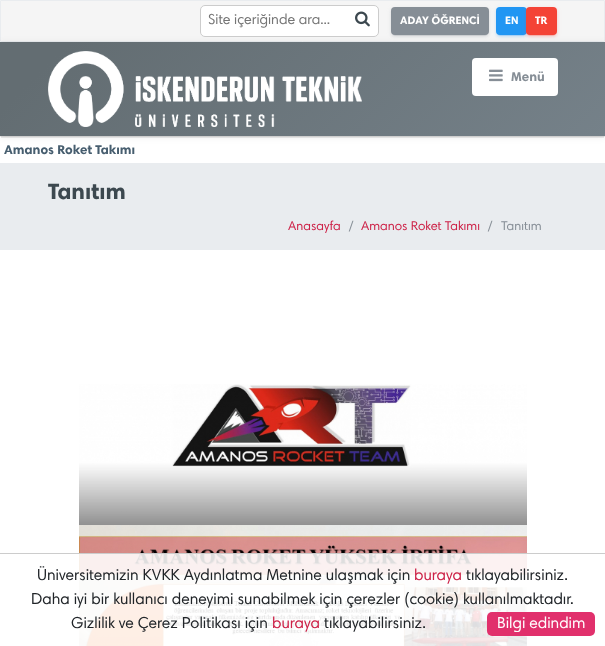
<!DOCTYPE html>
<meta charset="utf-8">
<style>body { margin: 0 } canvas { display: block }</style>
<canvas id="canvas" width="605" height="646"></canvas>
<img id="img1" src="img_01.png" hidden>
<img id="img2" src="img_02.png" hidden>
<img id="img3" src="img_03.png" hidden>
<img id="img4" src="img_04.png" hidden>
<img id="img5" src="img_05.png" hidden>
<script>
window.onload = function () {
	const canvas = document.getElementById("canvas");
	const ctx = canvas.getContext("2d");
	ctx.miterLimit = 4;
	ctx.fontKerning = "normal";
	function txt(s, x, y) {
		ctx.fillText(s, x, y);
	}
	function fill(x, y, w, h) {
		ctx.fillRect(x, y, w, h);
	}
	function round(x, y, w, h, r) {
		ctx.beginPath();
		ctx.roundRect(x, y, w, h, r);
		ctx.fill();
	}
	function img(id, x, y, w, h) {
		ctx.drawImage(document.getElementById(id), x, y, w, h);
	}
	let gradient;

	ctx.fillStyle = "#FFFFFF";
	fill(0, 0, 605, 646);
	ctx.fillStyle = "#F5F5F5";
	ctx.beginPath();
	ctx.rect(0.5, 0.5, 604, 41);
	ctx.fill();
	ctx.strokeStyle = "#E9ECEF";
	ctx.stroke();
	ctx.fillStyle = "rgba(0, 0, 0, 0.08)";
	ctx.filter = "blur(3.5px)";
	ctx.beginPath();
	ctx.rect(0, 43, 605, 94);
	ctx.fill();
	ctx.filter = "none";
	ctx.fillStyle = "#FFFFFF";
	ctx.beginPath();
	ctx.roundRect(200.5, 5.5, 178, 31, 4.5);
	ctx.fill();
	ctx.strokeStyle = "#CCCCCC";
	ctx.stroke();
	img("img1", 355, 11, 15, 16);
	ctx.fillStyle = "rgba(0, 0, 0, 0.08)";
	ctx.filter = "blur(0.5px)";
	ctx.beginPath();
	ctx.rect(1, 46, 603, 92);
	ctx.fill();
	ctx.filter = "none";
	ctx.filter = "blur(0.5px)";
	ctx.beginPath();
	ctx.rect(0, 43, 605, 94);
	ctx.fill();
	ctx.filter = "none";
	gradient = ctx.createLinearGradient(128, -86, 477, 264);
	gradient.addColorStop(0.1, "#636D72");
	gradient.addColorStop(1, "#758189");
	ctx.fillStyle = gradient;
	fill(0, 42, 605, 94);
	ctx.fillStyle = "rgba(134, 142, 150, 0.12)";
	ctx.filter = "blur(2.5px)";
	ctx.beginPath();
	ctx.roundRect(391, 8, 98, 28, 4);
	ctx.fill();
	ctx.filter = "none";
	ctx.fillStyle = "rgba(134, 142, 150, 0.2)";
	ctx.filter = "blur(0.5px)";
	ctx.beginPath();
	ctx.roundRect(393, 12, 94, 24, 2);
	ctx.fill();
	ctx.filter = "none";
	ctx.fillStyle = "rgba(134, 142, 150, 0.14)";
	ctx.filter = "blur(1px)";
	ctx.beginPath();
	ctx.roundRect(391, 9, 98, 28, 4);
	ctx.fill();
	ctx.filter = "none";
	ctx.fillStyle = "#868E96";
	round(391, 7, 98, 28, 4);
	ctx.fillStyle = "rgba(33, 150, 243, 0.12)";
	ctx.filter = "blur(2.5px)";
	ctx.beginPath();
	ctx.roundRect(496, 8, 31, 28, 4);
	ctx.fill();
	ctx.filter = "none";
	ctx.fillStyle = "rgba(33, 150, 243, 0.2)";
	ctx.filter = "blur(0.5px)";
	ctx.beginPath();
	ctx.roundRect(498, 12, 27, 24, 2);
	ctx.fill();
	ctx.filter = "none";
	ctx.fillStyle = "rgba(33, 150, 243, 0.14)";
	ctx.filter = "blur(1px)";
	ctx.beginPath();
	ctx.roundRect(496, 9, 31, 28, 4);
	ctx.fill();
	ctx.filter = "none";
	ctx.fillStyle = "#2196F3";
	round(496, 7, 31, 28, 4);
	ctx.fillStyle = "rgba(244, 67, 54, 0.12)";
	ctx.filter = "blur(2.5px)";
	ctx.beginPath();
	ctx.roundRect(526, 8, 31, 28, 4);
	ctx.fill();
	ctx.filter = "none";
	ctx.fillStyle = "rgba(244, 67, 54, 0.2)";
	ctx.filter = "blur(0.5px)";
	ctx.beginPath();
	ctx.roundRect(528, 12, 27, 24, 2);
	ctx.fill();
	ctx.filter = "none";
	ctx.fillStyle = "rgba(244, 67, 54, 0.14)";
	ctx.filter = "blur(1px)";
	ctx.beginPath();
	ctx.roundRect(526, 9, 31, 28, 4);
	ctx.fill();
	ctx.filter = "none";
	ctx.fillStyle = "#F44336";
	round(526, 7, 31, 28, 4);
	img("img2", 48, 51, 314, 76);
	ctx.fillStyle = "#FFFFFF";
	round(472, 58, 86, 38, 4);
	img("img3", 489, 69, 14, 13);
	ctx.fillStyle = "#E9ECEF";
	fill(0, 163, 605, 87);
	img("img4", 79, 384, 448, 141);
	img("img5", 79, 525, 448, 121);
	ctx.fillStyle = "rgba(255, 255, 255, 0.87)";
	fill(79, 554, 448, 92);
	ctx.fillStyle = "#CCCCCC";
	fill(0, 553, 605, 1);
	ctx.fillStyle = "#E1306C";
	round(487, 612, 108, 24, 5);
	ctx.font = "14.5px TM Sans";
	ctx.fillStyle = "#757575";
	txt("Site içeriğinde ara...", 208, 24);
	ctx.font = "bold 11px TM Sans";
	ctx.fillStyle = "#FFFFFF";
	txt("ADAY ÖĞRENCİ", 400, 24);
	txt("EN", 505, 24);
	txt("TR", 535, 24);
	ctx.font = "bold 13px TM Sans";
	ctx.fillStyle = "#868E96";
	txt("Menü", 511, 81);
	ctx.fillStyle = "#475E6F";
	txt("Amanos Roket Takımı", 4, 154);
	ctx.font = "bold 22.5px TM Sans";
	ctx.fillStyle = "#3C484F";
	txt("Tanıtım", 48, 199);
	ctx.font = "13px TM Sans";
	ctx.fillStyle = "#CD2147";
	txt("Anasayfa", 288, 230);
	ctx.fillStyle = "#868E96";
	txt("/", 349, 230);
	ctx.fillStyle = "#CD2147";
	txt("Amanos Roket Takımı", 361, 230);
	ctx.fillStyle = "#868E96";
	txt("/", 488, 230);
	txt("Tanıtım", 501, 230);
	ctx.font = "16px TM Sans";
	ctx.fillStyle = "#212529";
	txt("Üniversitemizin KVKK Aydınlatma Metnine ulaşmak için", 37, 580);
	ctx.fillStyle = "#CD2147";
	txt("buraya", 414, 580);
	ctx.fillStyle = "#212529";
	txt("tıklayabilirsiniz.", 466, 580);
	txt("Daha iyi bir kullanıcı deneyimi sunabilmek için çerezler (cookie) kullanılmaktadır.", 31, 604);
	txt("Gizlilik ve Çerez Politikası için", 71, 628);
	ctx.fillStyle = "#CD2147";
	txt("buraya", 272, 628);
	ctx.fillStyle = "#212529";
	txt("tıklayabilirsiniz.", 324, 628);
	ctx.fillStyle = "#FFFFFF";
	txt("Bilgi edindim", 497, 628);
};
</script>
